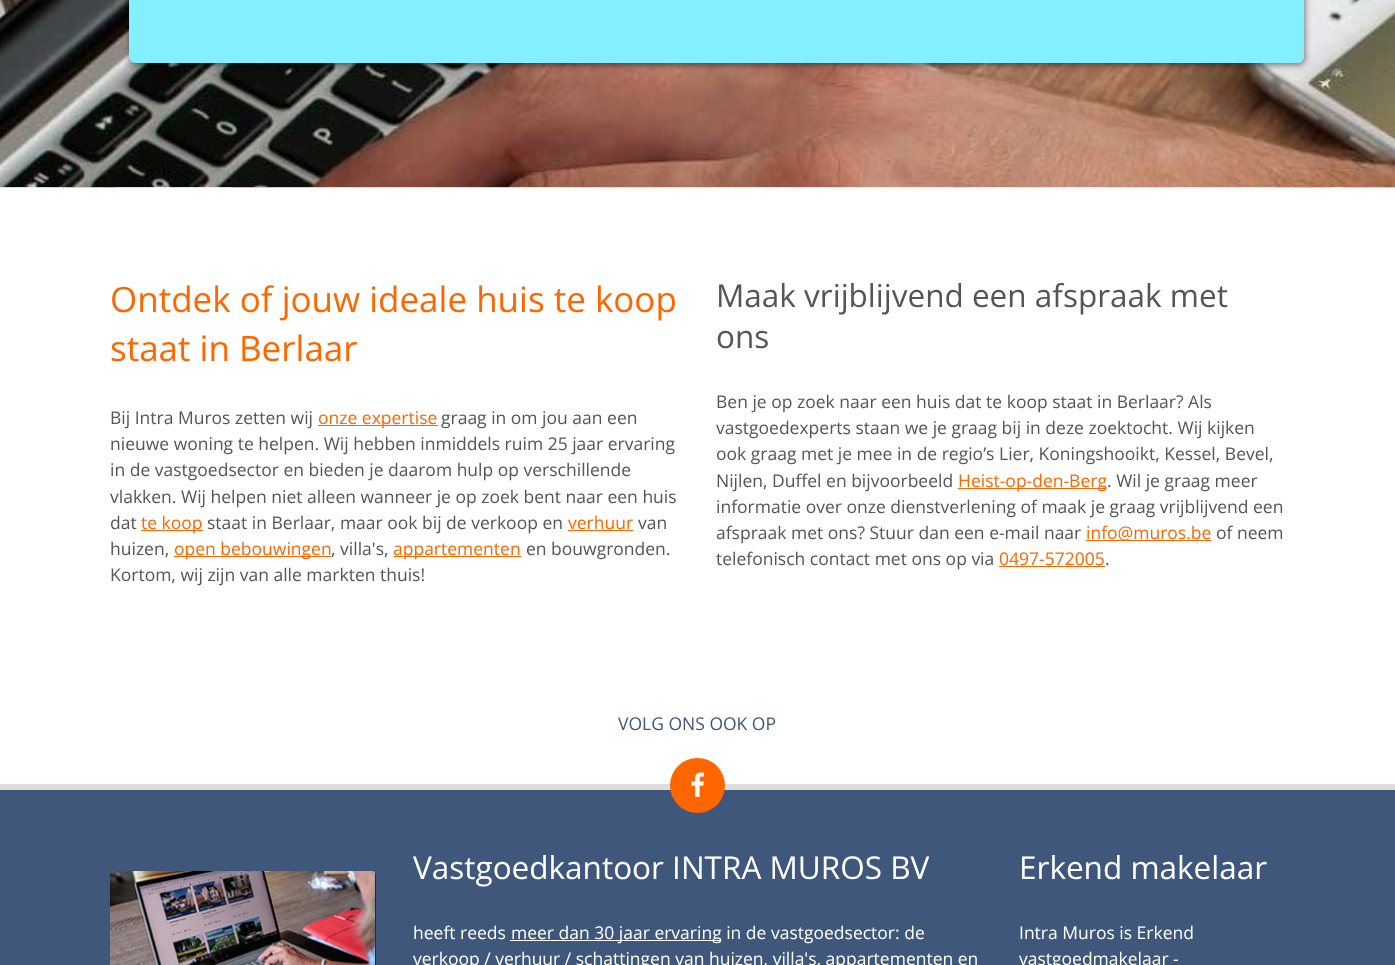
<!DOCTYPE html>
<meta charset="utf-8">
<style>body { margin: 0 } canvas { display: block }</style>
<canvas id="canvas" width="1395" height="965"></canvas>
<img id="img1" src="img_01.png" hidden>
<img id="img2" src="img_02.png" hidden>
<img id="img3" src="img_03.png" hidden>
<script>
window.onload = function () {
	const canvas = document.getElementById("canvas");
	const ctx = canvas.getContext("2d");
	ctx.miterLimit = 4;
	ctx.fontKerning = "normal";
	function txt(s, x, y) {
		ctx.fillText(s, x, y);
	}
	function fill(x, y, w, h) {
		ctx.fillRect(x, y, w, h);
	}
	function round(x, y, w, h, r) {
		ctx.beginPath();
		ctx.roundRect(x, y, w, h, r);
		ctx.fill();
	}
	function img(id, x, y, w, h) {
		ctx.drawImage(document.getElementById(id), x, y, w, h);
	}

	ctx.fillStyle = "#FFFFFF";
	fill(0, 0, 1395, 965);
	img("img1", 0, 0, 1395, 188);
	ctx.fillStyle = "rgba(0, 0, 0, 0.5)";
	ctx.filter = "blur(3px)";
	ctx.beginPath();
	ctx.roundRect(130, -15, 1175, 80, 6);
	ctx.fill();
	ctx.filter = "none";
	ctx.fillStyle = "#83EFFF";
	round(129, -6, 1175, 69, 6);
	ctx.fillStyle = "#FF6600";
	fill(318, 425, 120, 1);
	fill(141, 530, 62, 1);
	fill(568, 530, 65, 1);
	fill(174, 556, 157, 1);
	fill(394, 556, 127, 1);
	fill(958, 488, 148, 1);
	fill(1086, 540, 125, 1);
	fill(999, 566, 106, 1);
	ctx.fillStyle = "#3E577B";
	fill(0, 790, 1395, 175);
	ctx.fillStyle = "#DDDDDD";
	fill(0, 784, 1395, 6);
	ctx.fillStyle = "#FF6600";
	ctx.beginPath();
	ctx.arc(697.5, 785.5, 27.5, 0, Math.PI * 2);
	ctx.fill();
	img("img2", 691, 772, 14, 25);
	ctx.fillStyle = "rgba(0, 0, 0, 0.5)";
	ctx.filter = "blur(0.5px)";
	ctx.beginPath();
	ctx.roundRect(111, 873, 265, 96, 2.5);
	ctx.fill();
	ctx.filter = "none";
	img("img3", 110, 871, 265, 94);
	ctx.fillStyle = "#FFFFFF";
	fill(510, 940, 211, 1);
	ctx.font = "35px Open Sans";
	ctx.fillStyle = "#FF6600";
	txt("Ontdek of jouw ideale huis te koop", 110, 312);
	txt("staat in Berlaar", 110, 361);
	ctx.font = "17.5px Open Sans";
	ctx.fillStyle = "#555555";
	txt("Bij Intra Muros zetten wij", 110, 424);
	ctx.fillStyle = "#FF6600";
	txt("onze expertise", 318, 424);
	ctx.fillStyle = "#555555";
	txt("graag in om jou aan een", 441, 424);
	txt("nieuwe woning te helpen. Wij hebben inmiddels ruim 25 jaar ervaring", 110, 450);
	txt("in de vastgoedsector en bieden je daarom hulp op verschillende", 110, 476);
	txt("vlakken. Wij helpen niet alleen wanneer je op zoek bent naar een huis", 110, 503);
	txt("dat", 110, 529);
	ctx.fillStyle = "#FF6600";
	txt("te koop", 141, 529);
	ctx.fillStyle = "#555555";
	txt("staat in Berlaar, maar ook bij de verkoop en", 207, 529);
	ctx.fillStyle = "#FF6600";
	txt("verhuur", 568, 529);
	ctx.fillStyle = "#555555";
	txt("van", 638, 529);
	txt("huizen,", 110, 555);
	ctx.fillStyle = "#FF6600";
	txt("open bebouwingen", 174, 555);
	ctx.fillStyle = "#555555";
	txt(", villa's,", 331, 555);
	ctx.fillStyle = "#FF6600";
	txt("appartementen", 393, 555);
	ctx.fillStyle = "#555555";
	txt("en bouwgronden.", 526, 555);
	txt("Kortom, wij zijn van alle markten thuis!", 110, 581);
	ctx.font = "31.5px Open Sans";
	txt("Maak vrijblijvend een afspraak met", 716, 307);
	txt("ons", 716, 348);
	ctx.font = "17.5px Open Sans";
	txt("Ben je op zoek naar een huis dat te koop staat in Berlaar? Als", 716, 408);
	txt("vastgoedexperts staan we je graag bij in deze zoektocht. Wij kijken", 716, 434);
	txt("ook graag met je mee in de regio’s Lier, Koningshooikt, Kessel, Bevel,", 716, 460);
	txt("Nijlen, Duffel en bijvoorbeeld", 716, 487);
	ctx.fillStyle = "#FF6600";
	txt("Heist-op-den-Berg", 958, 487);
	ctx.fillStyle = "#555555";
	txt(". Wil je graag meer", 1107, 487);
	txt("informatie over onze dienstverlening of maak je graag vrijblijvend een", 716, 513);
	txt("afspraak met ons? Stuur dan een e-mail naar", 716, 539);
	ctx.fillStyle = "#FF6600";
	txt("info@muros.be", 1086, 539);
	ctx.fillStyle = "#555555";
	txt("of neem", 1216, 539);
	txt("telefonisch contact met ons op via", 716, 565);
	ctx.fillStyle = "#FF6600";
	txt("0497-572005", 999, 565);
	ctx.fillStyle = "#555555";
	txt(".", 1105, 565);
	ctx.fillStyle = "#3E577B";
	txt("VOLG ONS OOK OP", 618, 730);
	ctx.font = "31.5px Open Sans";
	ctx.fillStyle = "#FFFFFF";
	txt("Vastgoedkantoor INTRA MUROS BV", 413, 879);
	ctx.font = "17.5px Open Sans";
	txt("heeft reeds", 413, 939);
	txt("meer dan 30 jaar ervaring in de vastgoedsector: de", 511, 939);
	txt("verkoop / verhuur / schattingen van huizen, villa's, appartementen en", 413, 965);
	ctx.font = "31.5px Open Sans";
	txt("Erkend makelaar", 1019, 879);
	ctx.font = "17.5px Open Sans";
	txt("Intra Muros is Erkend", 1019, 939);
	txt("vastgoedmakelaar -", 1019, 965);
};
</script>
